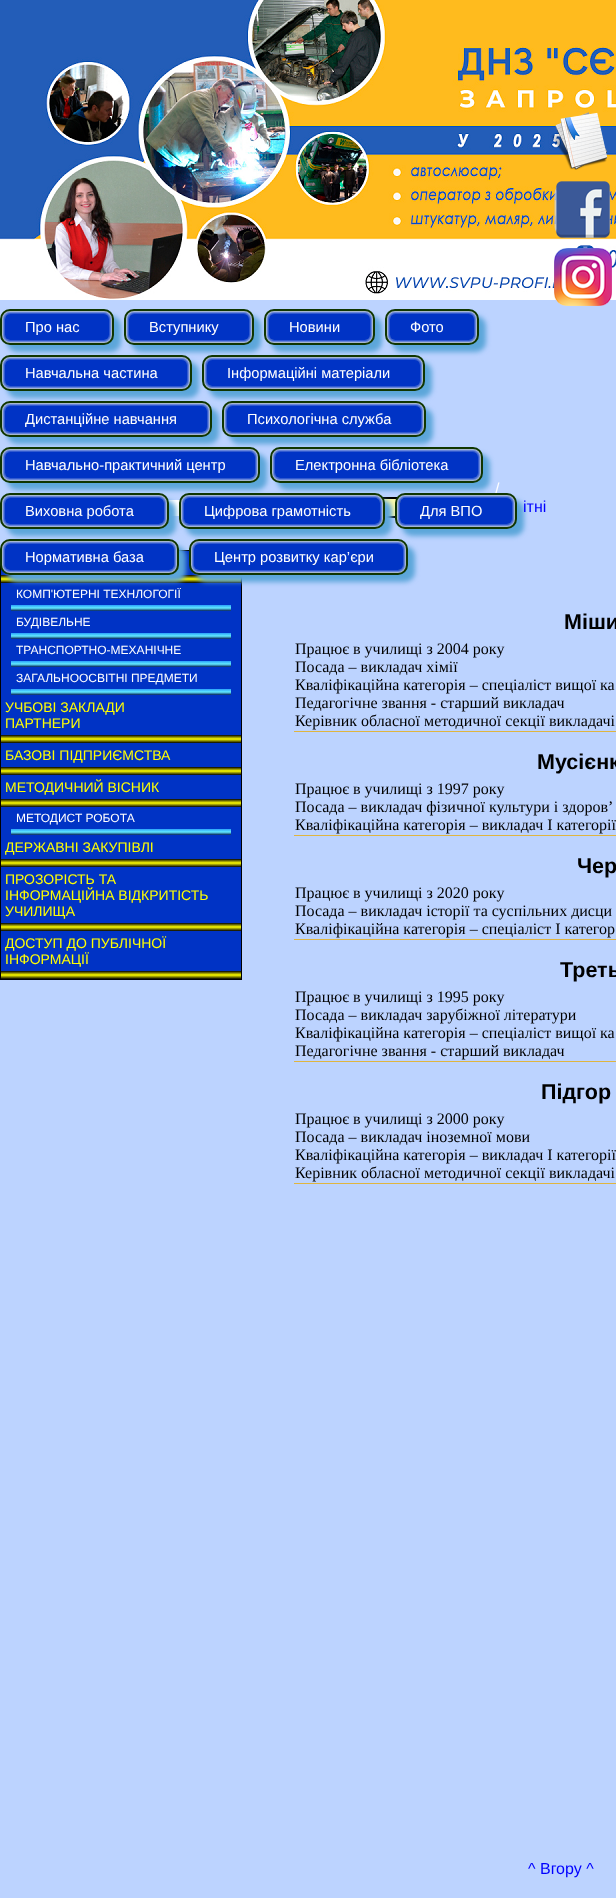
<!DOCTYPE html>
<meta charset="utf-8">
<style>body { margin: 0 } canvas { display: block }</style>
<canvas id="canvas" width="616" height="1898"></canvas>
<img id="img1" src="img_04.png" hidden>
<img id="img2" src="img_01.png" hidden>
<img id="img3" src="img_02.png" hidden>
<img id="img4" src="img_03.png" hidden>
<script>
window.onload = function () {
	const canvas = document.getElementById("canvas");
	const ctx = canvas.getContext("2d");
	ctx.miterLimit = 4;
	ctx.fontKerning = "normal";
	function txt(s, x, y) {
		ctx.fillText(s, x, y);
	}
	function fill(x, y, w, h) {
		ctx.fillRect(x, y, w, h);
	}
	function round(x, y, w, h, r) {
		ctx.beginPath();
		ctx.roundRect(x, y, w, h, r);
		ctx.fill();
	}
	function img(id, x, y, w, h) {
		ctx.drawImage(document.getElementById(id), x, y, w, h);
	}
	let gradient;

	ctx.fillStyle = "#BCD3FF";
	fill(0, 0, 616, 1898);
	img("img1", 0, 0, 616, 300);
	img("img2", 551, 112, 57, 58);
	img("img3", 554, 181, 56, 57);
	img("img4", 554, 248, 58, 58);
	ctx.fillStyle = "#5CA6DA";
	ctx.filter = "blur(2.5px)";
	ctx.beginPath();
	ctx.roundRect(7, 316, 114, 36, 10);
	ctx.fill();
	ctx.filter = "none";
	ctx.beginPath();
	ctx.roundRect(2.5, 311.5, 109, 31, 7.5);
	ctx.strokeStyle = "#103600";
	ctx.lineWidth = 5;
	ctx.stroke();
	ctx.beginPath();
	ctx.roundRect(3.5, 312.5, 107, 29, 6.5);
	ctx.strokeStyle = "#A6B6D0";
	ctx.lineWidth = 3;
	ctx.stroke();
	ctx.beginPath();
	ctx.roundRect(4, 313, 106, 28, 6);
	ctx.strokeStyle = "#6685DC";
	ctx.lineWidth = 2;
	ctx.stroke();
	ctx.beginPath();
	ctx.roundRect(4.5, 313.5, 105, 27, 5.5);
	ctx.strokeStyle = "#3059D0";
	ctx.lineWidth = 1;
	ctx.stroke();
	ctx.fillStyle = "#0033C5";
	round(5, 314, 104, 26, 5);
	ctx.fillStyle = "#5CA6DA";
	ctx.filter = "blur(2.5px)";
	ctx.beginPath();
	ctx.roundRect(131, 316, 130, 36, 10);
	ctx.fill();
	ctx.filter = "none";
	ctx.beginPath();
	ctx.roundRect(126.5, 311.5, 125, 31, 7.5);
	ctx.strokeStyle = "#103600";
	ctx.lineWidth = 5;
	ctx.stroke();
	ctx.beginPath();
	ctx.roundRect(127.5, 312.5, 123, 29, 6.5);
	ctx.strokeStyle = "#A6B6D0";
	ctx.lineWidth = 3;
	ctx.stroke();
	ctx.beginPath();
	ctx.roundRect(128, 313, 122, 28, 6);
	ctx.strokeStyle = "#6685DC";
	ctx.lineWidth = 2;
	ctx.stroke();
	ctx.beginPath();
	ctx.roundRect(128.5, 313.5, 121, 27, 5.5);
	ctx.strokeStyle = "#3059D0";
	ctx.lineWidth = 1;
	ctx.stroke();
	ctx.fillStyle = "#0033C5";
	round(129, 314, 120, 26, 5);
	ctx.fillStyle = "#5CA6DA";
	ctx.filter = "blur(2.5px)";
	ctx.beginPath();
	ctx.roundRect(271, 316, 111, 36, 10);
	ctx.fill();
	ctx.filter = "none";
	ctx.beginPath();
	ctx.roundRect(266.5, 311.5, 106, 31, 7.5);
	ctx.strokeStyle = "#103600";
	ctx.lineWidth = 5;
	ctx.stroke();
	ctx.beginPath();
	ctx.roundRect(267.5, 312.5, 104, 29, 6.5);
	ctx.strokeStyle = "#A6B6D0";
	ctx.lineWidth = 3;
	ctx.stroke();
	ctx.beginPath();
	ctx.roundRect(268, 313, 103, 28, 6);
	ctx.strokeStyle = "#6685DC";
	ctx.lineWidth = 2;
	ctx.stroke();
	ctx.beginPath();
	ctx.roundRect(268.5, 313.5, 102, 27, 5.5);
	ctx.strokeStyle = "#3059D0";
	ctx.lineWidth = 1;
	ctx.stroke();
	ctx.fillStyle = "#0033C5";
	round(269, 314, 101, 26, 5);
	ctx.fillStyle = "#5CA6DA";
	ctx.filter = "blur(2.5px)";
	ctx.beginPath();
	ctx.roundRect(392, 316, 94, 36, 10);
	ctx.fill();
	ctx.filter = "none";
	ctx.beginPath();
	ctx.roundRect(387.5, 311.5, 89, 31, 7.5);
	ctx.strokeStyle = "#103600";
	ctx.lineWidth = 5;
	ctx.stroke();
	ctx.beginPath();
	ctx.roundRect(388.5, 312.5, 87, 29, 6.5);
	ctx.strokeStyle = "#A6B6D0";
	ctx.lineWidth = 3;
	ctx.stroke();
	ctx.beginPath();
	ctx.roundRect(389, 313, 86, 28, 6);
	ctx.strokeStyle = "#6685DC";
	ctx.lineWidth = 2;
	ctx.stroke();
	ctx.beginPath();
	ctx.roundRect(389.5, 313.5, 85, 27, 5.5);
	ctx.strokeStyle = "#3059D0";
	ctx.lineWidth = 1;
	ctx.stroke();
	ctx.fillStyle = "#0033C5";
	round(390, 314, 84, 26, 5);
	ctx.fillStyle = "#5CA6DA";
	ctx.filter = "blur(2.5px)";
	ctx.beginPath();
	ctx.roundRect(7, 362, 192, 36, 10);
	ctx.fill();
	ctx.filter = "none";
	ctx.beginPath();
	ctx.roundRect(2.5, 357.5, 187, 31, 7.5);
	ctx.strokeStyle = "#103600";
	ctx.lineWidth = 5;
	ctx.stroke();
	ctx.beginPath();
	ctx.roundRect(3.5, 358.5, 185, 29, 6.5);
	ctx.strokeStyle = "#A6B6D0";
	ctx.lineWidth = 3;
	ctx.stroke();
	ctx.beginPath();
	ctx.roundRect(4, 359, 184, 28, 6);
	ctx.strokeStyle = "#6685DC";
	ctx.lineWidth = 2;
	ctx.stroke();
	ctx.beginPath();
	ctx.roundRect(4.5, 359.5, 183, 27, 5.5);
	ctx.strokeStyle = "#3059D0";
	ctx.lineWidth = 1;
	ctx.stroke();
	ctx.fillStyle = "#0033C5";
	round(5, 360, 182, 26, 5);
	ctx.fillStyle = "#5CA6DA";
	ctx.filter = "blur(2.5px)";
	ctx.beginPath();
	ctx.roundRect(209, 362, 223, 36, 10);
	ctx.fill();
	ctx.filter = "none";
	ctx.beginPath();
	ctx.roundRect(204.5, 357.5, 218, 31, 7.5);
	ctx.strokeStyle = "#103600";
	ctx.lineWidth = 5;
	ctx.stroke();
	ctx.beginPath();
	ctx.roundRect(205.5, 358.5, 216, 29, 6.5);
	ctx.strokeStyle = "#A6B6D0";
	ctx.lineWidth = 3;
	ctx.stroke();
	ctx.beginPath();
	ctx.roundRect(206, 359, 215, 28, 6);
	ctx.strokeStyle = "#6685DC";
	ctx.lineWidth = 2;
	ctx.stroke();
	ctx.beginPath();
	ctx.roundRect(206.5, 359.5, 214, 27, 5.5);
	ctx.strokeStyle = "#3059D0";
	ctx.lineWidth = 1;
	ctx.stroke();
	ctx.fillStyle = "#0033C5";
	round(207, 360, 213, 26, 5);
	ctx.fillStyle = "#5CA6DA";
	ctx.filter = "blur(2.5px)";
	ctx.beginPath();
	ctx.roundRect(7, 408, 212, 36, 10);
	ctx.fill();
	ctx.filter = "none";
	ctx.beginPath();
	ctx.roundRect(2.5, 403.5, 207, 31, 7.5);
	ctx.strokeStyle = "#103600";
	ctx.lineWidth = 5;
	ctx.stroke();
	ctx.beginPath();
	ctx.roundRect(3.5, 404.5, 205, 29, 6.5);
	ctx.strokeStyle = "#A6B6D0";
	ctx.lineWidth = 3;
	ctx.stroke();
	ctx.beginPath();
	ctx.roundRect(4, 405, 204, 28, 6);
	ctx.strokeStyle = "#6685DC";
	ctx.lineWidth = 2;
	ctx.stroke();
	ctx.beginPath();
	ctx.roundRect(4.5, 405.5, 203, 27, 5.5);
	ctx.strokeStyle = "#3059D0";
	ctx.lineWidth = 1;
	ctx.stroke();
	ctx.fillStyle = "#0033C5";
	round(5, 406, 202, 26, 5);
	ctx.fillStyle = "#5CA6DA";
	ctx.filter = "blur(2.5px)";
	ctx.beginPath();
	ctx.roundRect(229, 408, 204, 36, 10);
	ctx.fill();
	ctx.filter = "none";
	ctx.beginPath();
	ctx.roundRect(224.5, 403.5, 199, 31, 7.5);
	ctx.strokeStyle = "#103600";
	ctx.lineWidth = 5;
	ctx.stroke();
	ctx.beginPath();
	ctx.roundRect(225.5, 404.5, 197, 29, 6.5);
	ctx.strokeStyle = "#A6B6D0";
	ctx.lineWidth = 3;
	ctx.stroke();
	ctx.beginPath();
	ctx.roundRect(226, 405, 196, 28, 6);
	ctx.strokeStyle = "#6685DC";
	ctx.lineWidth = 2;
	ctx.stroke();
	ctx.beginPath();
	ctx.roundRect(226.5, 405.5, 195, 27, 5.5);
	ctx.strokeStyle = "#3059D0";
	ctx.lineWidth = 1;
	ctx.stroke();
	ctx.fillStyle = "#0033C5";
	round(227, 406, 194, 26, 5);
	ctx.fillStyle = "#5CA6DA";
	ctx.filter = "blur(2.5px)";
	ctx.beginPath();
	ctx.roundRect(7, 454, 260, 36, 10);
	ctx.fill();
	ctx.filter = "none";
	ctx.beginPath();
	ctx.roundRect(2.5, 449.5, 255, 31, 7.5);
	ctx.strokeStyle = "#103600";
	ctx.lineWidth = 5;
	ctx.stroke();
	ctx.beginPath();
	ctx.roundRect(3.5, 450.5, 253, 29, 6.5);
	ctx.strokeStyle = "#A6B6D0";
	ctx.lineWidth = 3;
	ctx.stroke();
	ctx.beginPath();
	ctx.roundRect(4, 451, 252, 28, 6);
	ctx.strokeStyle = "#6685DC";
	ctx.lineWidth = 2;
	ctx.stroke();
	ctx.beginPath();
	ctx.roundRect(4.5, 451.5, 251, 27, 5.5);
	ctx.strokeStyle = "#3059D0";
	ctx.lineWidth = 1;
	ctx.stroke();
	ctx.fillStyle = "#0033C5";
	round(5, 452, 250, 26, 5);
	ctx.fillStyle = "#FAFAA9";
	fill(378, 499, 24, 17);
	ctx.strokeStyle = "#000000";
	ctx.lineWidth = 2;
	ctx.strokeRect(352, 498, 61, 19);
	ctx.fillStyle = "#5CA6DA";
	ctx.filter = "blur(2.5px)";
	ctx.beginPath();
	ctx.roundRect(277, 454, 213, 36, 10);
	ctx.fill();
	ctx.filter = "none";
	ctx.beginPath();
	ctx.roundRect(272.5, 449.5, 208, 31, 7.5);
	ctx.strokeStyle = "#103600";
	ctx.lineWidth = 5;
	ctx.stroke();
	ctx.beginPath();
	ctx.roundRect(273.5, 450.5, 206, 29, 6.5);
	ctx.strokeStyle = "#A6B6D0";
	ctx.lineWidth = 3;
	ctx.stroke();
	ctx.beginPath();
	ctx.roundRect(274, 451, 205, 28, 6);
	ctx.strokeStyle = "#6685DC";
	ctx.lineWidth = 2;
	ctx.stroke();
	ctx.beginPath();
	ctx.roundRect(274.5, 451.5, 204, 27, 5.5);
	ctx.strokeStyle = "#3059D0";
	ctx.lineWidth = 1;
	ctx.stroke();
	ctx.fillStyle = "#0033C5";
	round(275, 452, 203, 26, 5);
	ctx.fillStyle = "#FFFFFF";
	fill(163, 500, 22, 16);
	ctx.fillStyle = "#5CA6DA";
	ctx.filter = "blur(2.5px)";
	ctx.beginPath();
	ctx.roundRect(7, 500, 169, 36, 10);
	ctx.fill();
	ctx.filter = "none";
	ctx.beginPath();
	ctx.roundRect(2.5, 495.5, 164, 31, 7.5);
	ctx.strokeStyle = "#103600";
	ctx.lineWidth = 5;
	ctx.stroke();
	ctx.beginPath();
	ctx.roundRect(3.5, 496.5, 162, 29, 6.5);
	ctx.strokeStyle = "#A6B6D0";
	ctx.lineWidth = 3;
	ctx.stroke();
	ctx.beginPath();
	ctx.roundRect(4, 497, 161, 28, 6);
	ctx.strokeStyle = "#6685DC";
	ctx.lineWidth = 2;
	ctx.stroke();
	ctx.beginPath();
	ctx.roundRect(4.5, 497.5, 160, 27, 5.5);
	ctx.strokeStyle = "#3059D0";
	ctx.lineWidth = 1;
	ctx.stroke();
	ctx.fillStyle = "#0033C5";
	round(5, 498, 159, 26, 5);
	ctx.fillStyle = "#5CA6DA";
	ctx.filter = "blur(2.5px)";
	ctx.beginPath();
	ctx.roundRect(186, 500, 206, 36, 10);
	ctx.fill();
	ctx.filter = "none";
	ctx.beginPath();
	ctx.roundRect(181.5, 495.5, 201, 31, 7.5);
	ctx.strokeStyle = "#103600";
	ctx.lineWidth = 5;
	ctx.stroke();
	ctx.beginPath();
	ctx.roundRect(182.5, 496.5, 199, 29, 6.5);
	ctx.strokeStyle = "#A6B6D0";
	ctx.lineWidth = 3;
	ctx.stroke();
	ctx.beginPath();
	ctx.roundRect(183, 497, 198, 28, 6);
	ctx.strokeStyle = "#6685DC";
	ctx.lineWidth = 2;
	ctx.stroke();
	ctx.beginPath();
	ctx.roundRect(183.5, 497.5, 197, 27, 5.5);
	ctx.strokeStyle = "#3059D0";
	ctx.lineWidth = 1;
	ctx.stroke();
	ctx.fillStyle = "#0033C5";
	round(184, 498, 196, 26, 5);
	ctx.fillStyle = "#5CA6DA";
	ctx.filter = "blur(2.5px)";
	ctx.beginPath();
	ctx.roundRect(402, 500, 122, 36, 10);
	ctx.fill();
	ctx.filter = "none";
	ctx.fillStyle = "#0033C5";
	fill(1, 551, 240, 420);
	ctx.strokeStyle = "#000000";
	ctx.strokeRect(0.5, 550.5, 241, 429);
	gradient = ctx.createLinearGradient(121, 575, 121, 583);
	gradient.addColorStop(0, "#000000");
	gradient.addColorStop(0.5, "#FFFF00");
	gradient.addColorStop(1, "#000000");
	ctx.fillStyle = gradient;
	fill(1, 575, 240, 8);
	ctx.fillStyle = "#5CA6DA";
	ctx.filter = "blur(2.5px)";
	ctx.beginPath();
	ctx.roundRect(7, 546, 179, 36, 10);
	ctx.fill();
	ctx.filter = "none";
	ctx.beginPath();
	ctx.roundRect(2.5, 541.5, 174, 31, 7.5);
	ctx.strokeStyle = "#103600";
	ctx.lineWidth = 5;
	ctx.stroke();
	ctx.beginPath();
	ctx.roundRect(3.5, 542.5, 172, 29, 6.5);
	ctx.strokeStyle = "#A6B6D0";
	ctx.lineWidth = 3;
	ctx.stroke();
	ctx.beginPath();
	ctx.roundRect(4, 543, 171, 28, 6);
	ctx.strokeStyle = "#6685DC";
	ctx.lineWidth = 2;
	ctx.stroke();
	ctx.beginPath();
	ctx.roundRect(4.5, 543.5, 170, 27, 5.5);
	ctx.strokeStyle = "#3059D0";
	ctx.lineWidth = 1;
	ctx.stroke();
	ctx.fillStyle = "#0033C5";
	round(5, 544, 169, 26, 5);
	ctx.fillStyle = "#5CA6DA";
	ctx.filter = "blur(2.5px)";
	ctx.beginPath();
	ctx.roundRect(196, 546, 219, 36, 10);
	ctx.fill();
	ctx.filter = "none";
	ctx.beginPath();
	ctx.roundRect(191.5, 541.5, 214, 31, 7.5);
	ctx.strokeStyle = "#103600";
	ctx.lineWidth = 5;
	ctx.stroke();
	ctx.beginPath();
	ctx.roundRect(192.5, 542.5, 212, 29, 6.5);
	ctx.strokeStyle = "#A6B6D0";
	ctx.lineWidth = 3;
	ctx.stroke();
	ctx.beginPath();
	ctx.roundRect(193, 543, 211, 28, 6);
	ctx.strokeStyle = "#6685DC";
	ctx.lineWidth = 2;
	ctx.stroke();
	ctx.beginPath();
	ctx.roundRect(193.5, 543.5, 210, 27, 5.5);
	ctx.strokeStyle = "#3059D0";
	ctx.lineWidth = 1;
	ctx.stroke();
	ctx.fillStyle = "#0033C5";
	round(194, 544, 209, 26, 5);
	gradient = ctx.createLinearGradient(121, 605, 121, 611);
	gradient.addColorStop(0, "#29A0FA");
	gradient.addColorStop(0.5, "#62EBFF");
	gradient.addColorStop(1, "#041E58");
	ctx.fillStyle = gradient;
	fill(11, 605, 220, 6);
	gradient = ctx.createLinearGradient(121, 633, 121, 639);
	gradient.addColorStop(0, "#29A0FA");
	gradient.addColorStop(0.5, "#62EBFF");
	gradient.addColorStop(1, "#041E58");
	ctx.fillStyle = gradient;
	fill(11, 633, 220, 6);
	gradient = ctx.createLinearGradient(121, 661, 121, 667);
	gradient.addColorStop(0, "#29A0FA");
	gradient.addColorStop(0.5, "#62EBFF");
	gradient.addColorStop(1, "#041E58");
	ctx.fillStyle = gradient;
	fill(11, 661, 220, 6);
	gradient = ctx.createLinearGradient(121, 689, 121, 695);
	gradient.addColorStop(0, "#29A0FA");
	gradient.addColorStop(0.5, "#62EBFF");
	gradient.addColorStop(1, "#041E58");
	ctx.fillStyle = gradient;
	fill(11, 689, 220, 6);
	gradient = ctx.createLinearGradient(121, 735, 121, 743);
	gradient.addColorStop(0, "#000000");
	gradient.addColorStop(0.5, "#FFFF00");
	gradient.addColorStop(1, "#000000");
	ctx.fillStyle = gradient;
	fill(1, 735, 240, 8);
	gradient = ctx.createLinearGradient(121, 767, 121, 775);
	gradient.addColorStop(0, "#000000");
	gradient.addColorStop(0.5, "#FFFF00");
	gradient.addColorStop(1, "#000000");
	ctx.fillStyle = gradient;
	fill(1, 767, 240, 8);
	gradient = ctx.createLinearGradient(121, 799, 121, 807);
	gradient.addColorStop(0, "#000000");
	gradient.addColorStop(0.5, "#FFFF00");
	gradient.addColorStop(1, "#000000");
	ctx.fillStyle = gradient;
	fill(1, 799, 240, 8);
	gradient = ctx.createLinearGradient(121, 829, 121, 835);
	gradient.addColorStop(0, "#29A0FA");
	gradient.addColorStop(0.5, "#62EBFF");
	gradient.addColorStop(1, "#041E58");
	ctx.fillStyle = gradient;
	fill(11, 829, 220, 6);
	gradient = ctx.createLinearGradient(121, 859, 121, 867);
	gradient.addColorStop(0, "#000000");
	gradient.addColorStop(0.5, "#FFFF00");
	gradient.addColorStop(1, "#000000");
	ctx.fillStyle = gradient;
	fill(1, 859, 240, 8);
	gradient = ctx.createLinearGradient(121, 923, 121, 931);
	gradient.addColorStop(0, "#000000");
	gradient.addColorStop(0.5, "#FFFF00");
	gradient.addColorStop(1, "#000000");
	ctx.fillStyle = gradient;
	fill(1, 923, 240, 8);
	gradient = ctx.createLinearGradient(121, 971, 121, 979);
	gradient.addColorStop(0, "#000000");
	gradient.addColorStop(0.5, "#FFFF00");
	gradient.addColorStop(1, "#000000");
	ctx.fillStyle = gradient;
	fill(1, 971, 240, 8);
	ctx.fillStyle = "#E0B53F";
	fill(294, 731, 322, 1);
	fill(294, 835, 322, 1);
	fill(294, 939, 322, 1);
	fill(294, 1061, 322, 1);
	fill(294, 1183, 322, 1);
	ctx.font = "14.7px Liberation Sans";
	ctx.fillStyle = "#FFFFFF";
	txt("Про нас", 25, 332);
	txt("Вступнику", 149, 332);
	txt("Новини", 289, 332);
	txt("Фото", 410, 332);
	txt("Навчальна частина", 25, 378);
	txt("Iнформаційні матеріали", 227, 378);
	txt("Дистанційне навчання", 25, 424);
	txt("Психологічна служба", 247, 424);
	txt("Навчально-практичний центр", 25, 470);
	txt("Електронна бібліотека", 295, 470);
	txt("Виховна робота", 25, 516);
	txt("Цифрова грамотність", 204, 516);
	txt("Нормативна база", 25, 562);
	txt("Центр розвитку кар’єри", 214, 562);
	ctx.font = "16px Liberation Sans";
	txt("/", 495, 494);
	ctx.beginPath();
	ctx.roundRect(397.5, 495.5, 117, 31, 7.5);
	ctx.strokeStyle = "#103600";
	ctx.lineWidth = 5;
	ctx.stroke();
	ctx.beginPath();
	ctx.roundRect(398.5, 496.5, 115, 29, 6.5);
	ctx.strokeStyle = "#A6B6D0";
	ctx.lineWidth = 3;
	ctx.stroke();
	ctx.beginPath();
	ctx.roundRect(399, 497, 114, 28, 6);
	ctx.strokeStyle = "#6685DC";
	ctx.lineWidth = 2;
	ctx.stroke();
	ctx.beginPath();
	ctx.roundRect(399.5, 497.5, 113, 27, 5.5);
	ctx.strokeStyle = "#3059D0";
	ctx.lineWidth = 1;
	ctx.stroke();
	ctx.fillStyle = "#0033C5";
	round(400, 498, 112, 26, 5);
	ctx.font = "14.7px Liberation Sans";
	ctx.fillStyle = "#FFFFFF";
	txt("Для ВПО", 420, 516);
	ctx.font = "16px Liberation Sans";
	ctx.fillStyle = "#0000FF";
	txt("ітні", 523, 512);
	ctx.font = "12px Liberation Sans";
	ctx.fillStyle = "#FFFFFF";
	txt("КОМП'ЮТЕРНІ ТЕХНЛОГОГІЇ", 16, 598);
	txt("БУДІВЕЛЬНЕ", 16, 626);
	txt("ТРАНСПОРТНО-МЕХАНІЧНЕ", 16, 654);
	txt("ЗАГАЛЬНООСВІТНІ ПРЕДМЕТИ", 16, 682);
	ctx.font = "14px Liberation Sans";
	ctx.fillStyle = "#FFFF00";
	txt("УЧБОВІ ЗАКЛАДИ", 5, 712);
	txt("ПАРТНЕРИ", 5, 728);
	txt("БАЗОВІ ПІДПРИЄМСТВА", 5, 760);
	txt("МЕТОДИЧНИЙ ВІСНИК", 5, 792);
	ctx.font = "12px Liberation Sans";
	ctx.fillStyle = "#FFFFFF";
	txt("МЕТОДИСТ РОБОТА", 16, 822);
	ctx.font = "14px Liberation Sans";
	ctx.fillStyle = "#FFFF00";
	txt("ДЕРЖАВНІ ЗАКУПІВЛІ", 5, 852);
	txt("ПРОЗОРІСТЬ ТА", 5, 884);
	txt("ІНФОРМАЦІЙНА ВІДКРИТІСТЬ", 5, 900);
	txt("УЧИЛИЩА", 5, 916);
	txt("ДОСТУП ДО ПУБЛІЧНОЇ", 5, 948);
	txt("ІНФОРМАЦІЇ", 5, 964);
	ctx.font = "bold 21.5px Liberation Sans";
	ctx.fillStyle = "#000000";
	txt("Міши", 564, 629);
	ctx.font = "16px Liberation Serif";
	txt("Працює в училищі з 2004 року", 295, 654);
	txt("Посада – викладач хімії", 295, 672);
	txt("Кваліфікаційна категорія – спеціаліст вищої ка", 295, 690);
	txt("Педагогічне звання - старший викладач", 295, 708);
	txt("Керівник обласної методичної секції викладачі", 295, 726);
	ctx.font = "bold 21.5px Liberation Sans";
	txt("Мусієнк", 537, 769);
	ctx.font = "16px Liberation Serif";
	txt("Працює в училищі з 1997 року", 295, 794);
	txt("Посада – викладач фізичної культури і здоров’", 295, 812);
	txt("Кваліфікаційна категорія – викладач І категорії", 295, 830);
	ctx.font = "bold 21.5px Liberation Sans";
	txt("Чер", 577, 873);
	ctx.font = "16px Liberation Serif";
	txt("Працює в училищі з 2020 року", 295, 898);
	txt("Посада – викладач історії та суспільних дисци", 295, 916);
	txt("Кваліфікаційна категорія – спеціаліст І категор", 295, 934);
	ctx.font = "bold 21.5px Liberation Sans";
	txt("Треть", 560, 977);
	ctx.font = "16px Liberation Serif";
	txt("Працює в училищі з 1995 року", 295, 1002);
	txt("Посада – викладач зарубіжної літератури", 295, 1020);
	txt("Кваліфікаційна категорія – спеціаліст вищої ка", 295, 1038);
	txt("Педагогічне звання - старший викладач", 295, 1056);
	ctx.font = "bold 21.5px Liberation Sans";
	txt("Підгор", 541, 1099);
	ctx.font = "16px Liberation Serif";
	txt("Працює в училищі з 2000 року", 295, 1124);
	txt("Посада – викладач іноземної мови", 295, 1142);
	txt("Кваліфікаційна категорія – викладач І категорії", 295, 1160);
	txt("Керівник обласної методичної секції викладачі", 295, 1178);
	ctx.font = "16px Liberation Sans";
	ctx.fillStyle = "#0000FF";
	txt("^ Вгору ^", 528, 1874);
};
</script>
